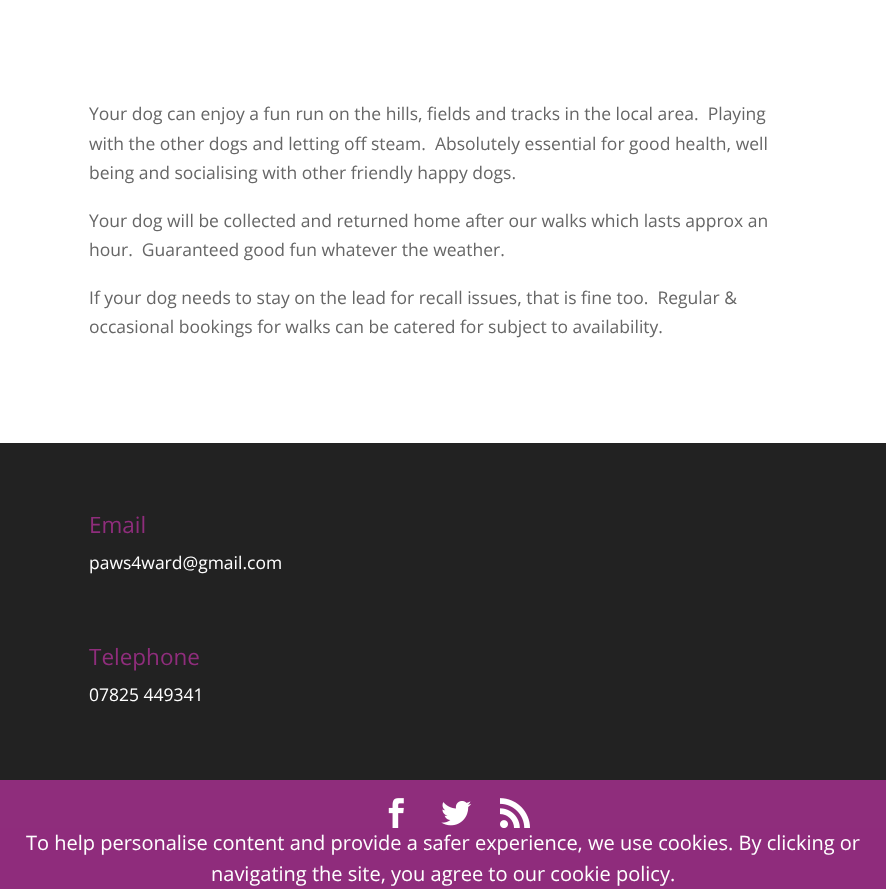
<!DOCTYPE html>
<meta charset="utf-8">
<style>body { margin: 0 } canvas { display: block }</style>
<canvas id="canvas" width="886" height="889"></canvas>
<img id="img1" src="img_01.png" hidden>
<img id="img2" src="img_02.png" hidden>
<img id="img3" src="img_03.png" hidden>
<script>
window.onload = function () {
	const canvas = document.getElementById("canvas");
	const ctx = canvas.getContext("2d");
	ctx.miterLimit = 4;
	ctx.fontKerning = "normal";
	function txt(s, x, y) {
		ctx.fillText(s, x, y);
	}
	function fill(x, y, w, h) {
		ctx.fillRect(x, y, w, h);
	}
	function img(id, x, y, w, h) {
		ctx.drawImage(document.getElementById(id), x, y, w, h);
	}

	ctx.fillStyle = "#FFFFFF";
	fill(0, 0, 886, 889);
	ctx.fillStyle = "#222222";
	fill(0, 443, 886, 337);
	ctx.fillStyle = "#8F2D7C";
	fill(0, 780, 886, 48);
	img("img1", 388, 798, 16, 30);
	img("img2", 441, 801, 31, 25);
	img("img3", 500, 798, 30, 30);
	ctx.fillStyle = "#8F2C7C";
	fill(0, 828, 886, 61);
	ctx.font = "17.5px Open Sans";
	ctx.fillStyle = "#666666";
	txt("Your dog can enjoy a fun run on the hills, fields and tracks in the local area.  Playing", 89, 120);
	txt("with the other dogs and letting off steam.  Absolutely essential for good health, well", 89, 150);
	txt("being and socialising with other friendly happy dogs.", 89, 179);
	txt("Your dog will be collected and returned home after our walks which lasts approx an", 89, 227);
	txt("hour.  Guaranteed good fun whatever the weather.", 89, 256);
	txt("If your dog needs to stay on the lead for recall issues, that is fine too.  Regular &", 89, 304);
	txt("occasional bookings for walks can be catered for subject to availability.", 89, 333);
	ctx.font = "22.5px Open Sans";
	ctx.fillStyle = "#8F2D7C";
	txt("Email", 89, 533);
	ctx.font = "17.5px Open Sans";
	ctx.fillStyle = "#FFFFFF";
	txt("paws4ward@gmail.com", 89, 569);
	ctx.font = "22.5px Open Sans";
	ctx.fillStyle = "#8F2D7C";
	txt("Telephone", 89, 665);
	ctx.font = "17.5px Open Sans";
	ctx.fillStyle = "#FFFFFF";
	txt("07825 449341", 89, 701);
	ctx.font = "20px Open Sans";
	txt("To help personalise content and provide a safer experience, we use cookies. By clicking or", 26, 850);
	txt("navigating the site, you agree to our cookie policy.", 211, 881);
};
</script>
